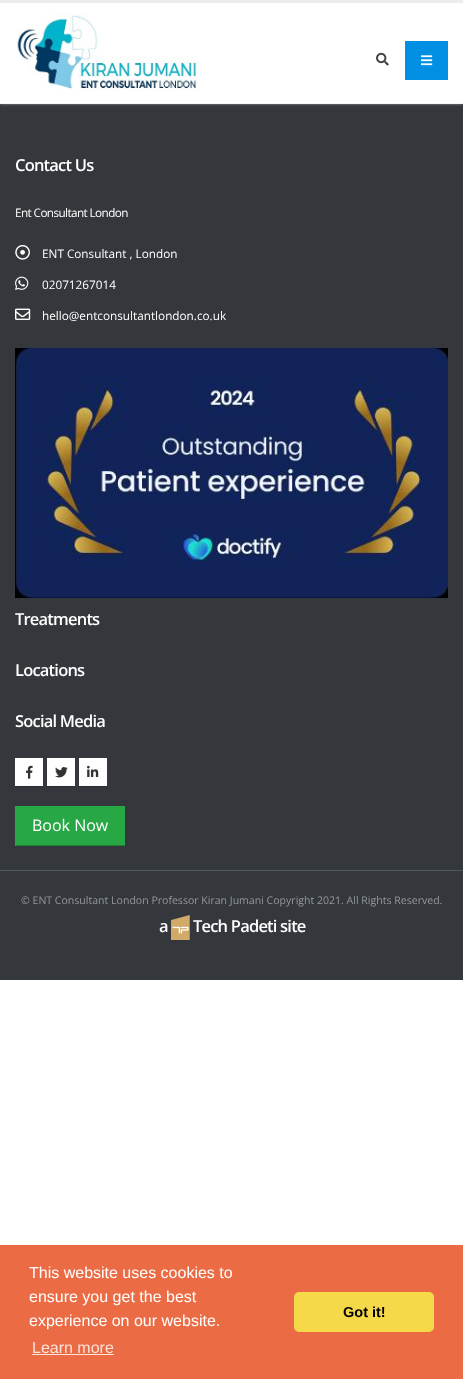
<!DOCTYPE html>
<meta charset="utf-8">
<style>body { margin: 0 } canvas { display: block }</style>
<canvas id="canvas" width="463" height="1379"></canvas>
<img id="img1" src="img_01.png" hidden>
<img id="img2" src="img_02.png" hidden>
<img id="img3" src="img_03.png" hidden>
<img id="img4" src="img_04.png" hidden>
<img id="img5" src="img_05.png" hidden>
<img id="img6" src="img_06.png" hidden>
<img id="img7" src="img_07.png" hidden>
<img id="img8" src="img_08.png" hidden>
<img id="img9" src="img_09.png" hidden>
<img id="img10" src="img_10.png" hidden>
<img id="img11" src="img_11.png" hidden>
<script>
window.onload = function () {
	const canvas = document.getElementById("canvas");
	const ctx = canvas.getContext("2d");
	ctx.miterLimit = 4;
	ctx.fontKerning = "normal";
	function txt(s, x, y) {
		ctx.fillText(s, x, y);
	}
	function fill(x, y, w, h) {
		ctx.fillRect(x, y, w, h);
	}
	function round(x, y, w, h, r) {
		ctx.beginPath();
		ctx.roundRect(x, y, w, h, r);
		ctx.fill();
	}
	function img(id, x, y, w, h) {
		ctx.drawImage(document.getElementById(id), x, y, w, h);
	}

	ctx.fillStyle = "#FFFFFF";
	fill(0, 0, 463, 1379);
	ctx.fillStyle = "#34383D";
	fill(0, 104, 463, 876);
	ctx.save();
	ctx.beginPath();
	ctx.rect(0, 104, 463, 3);
	ctx.clip();
	ctx.fillStyle = "rgba(234, 234, 234, 0.5)";
	ctx.filter = "blur(1.5px)";
	ctx.beginPath();
	ctx.rect(0, 0, 463, 104);
	ctx.fill();
	ctx.filter = "none";
	ctx.restore();
	ctx.fillStyle = "#EDEDED";
	fill(0, 0, 463, 3);
	ctx.fillStyle = "#F5F5F5";
	fill(0, 103, 463, 1);
	img("img1", 15, 13, 184, 77);
	img("img2", 376, 52, 13, 14);
	ctx.fillStyle = "#008FE2";
	fill(405, 41, 43, 39);
	img("img3", 421, 55, 12, 11);
	img("img4", 15, 244, 15, 16);
	img("img5", 15, 276, 14, 14);
	img("img6", 15, 308, 16, 12);
	img("img7", 15, 348, 433, 250);
	ctx.fillStyle = "rgba(0, 0, 0, 0.2)";
	ctx.filter = "blur(0.5px)";
	ctx.beginPath();
	ctx.rect(15, 759, 28, 28);
	ctx.fill();
	ctx.filter = "none";
	ctx.fillStyle = "#FFFFFF";
	fill(15, 758, 28, 28);
	img("img8", 26, 765, 7, 14);
	ctx.fillStyle = "rgba(0, 0, 0, 0.2)";
	ctx.filter = "blur(0.5px)";
	ctx.beginPath();
	ctx.rect(47, 759, 28, 28);
	ctx.fill();
	ctx.filter = "none";
	ctx.fillStyle = "#FFFFFF";
	fill(47, 758, 28, 28);
	img("img9", 55, 767, 13, 11);
	ctx.fillStyle = "rgba(0, 0, 0, 0.2)";
	ctx.filter = "blur(0.5px)";
	ctx.beginPath();
	ctx.rect(79, 759, 28, 28);
	ctx.fill();
	ctx.filter = "none";
	ctx.fillStyle = "#FFFFFF";
	fill(79, 758, 28, 28);
	img("img10", 87, 765, 12, 12);
	ctx.fillStyle = "#28A745";
	fill(16, 806, 109, 39);
	ctx.fillStyle = "#1E7E34";
	fill(15, 845, 110, 1);
	ctx.fillStyle = "#28A745";
	fill(15, 806, 1, 40);
	ctx.fillStyle = "#53585E";
	fill(0, 870, 463, 1);
	img("img11", 171, 915, 19, 25);
	ctx.fillStyle = "#EB6C44";
	fill(0, 1245, 463, 134);
	ctx.fillStyle = "#FBE2DA";
	fill(32, 1354, 82, 1);
	ctx.fillStyle = "#F5D948";
	round(294, 1292, 140, 40, 5);
	ctx.letterSpacing = "-0.8px";
	ctx.font = "600 16.5px Open Sans";
	ctx.fillStyle = "#FFFFFF";
	txt("Contact Us", 15, 171);
	ctx.letterSpacing = "-0.6px";
	ctx.font = "11.75px Open Sans";
	txt("Ent Consultant London", 15, 217);
	ctx.letterSpacing = "0px";
	txt("ENT Consultant , London", 42, 258);
	txt("02071267014", 42, 289);
	txt("hello@entconsultantlondon.co.uk", 42, 320);
	ctx.letterSpacing = "-0.8px";
	ctx.font = "600 16.5px Open Sans";
	txt("Treatments", 15, 625);
	txt("Locations", 15, 676);
	txt("Social Media", 15, 727);
	ctx.letterSpacing = "0px";
	ctx.font = "16px Open Sans";
	txt("Book Now", 32, 831);
	ctx.font = "10.55px Open Sans";
	ctx.fillStyle = "#95989C";
	txt("© ENT Consultant London Professor Kiran Jumani Copyright 2021. All Rights Reserved.", 21, 904);
	ctx.letterSpacing = "-0.8px";
	ctx.font = "600 16.5px Open Sans";
	ctx.fillStyle = "#FFFFFF";
	txt("a", 159, 932);
	txt("Tech Padeti site", 193, 932);
	ctx.letterSpacing = "0px";
	ctx.font = "16px Liberation Sans";
	txt("This website uses cookies to", 29, 1278);
	txt("ensure you get the best", 29, 1302);
	txt("experience on our website.", 29, 1326);
	ctx.fillStyle = "#FBE2DA";
	txt("Learn more", 32, 1353);
	ctx.font = "bold 14.5px Liberation Sans";
	ctx.fillStyle = "#000000";
	txt("Got it!", 343, 1317);
};
</script>
